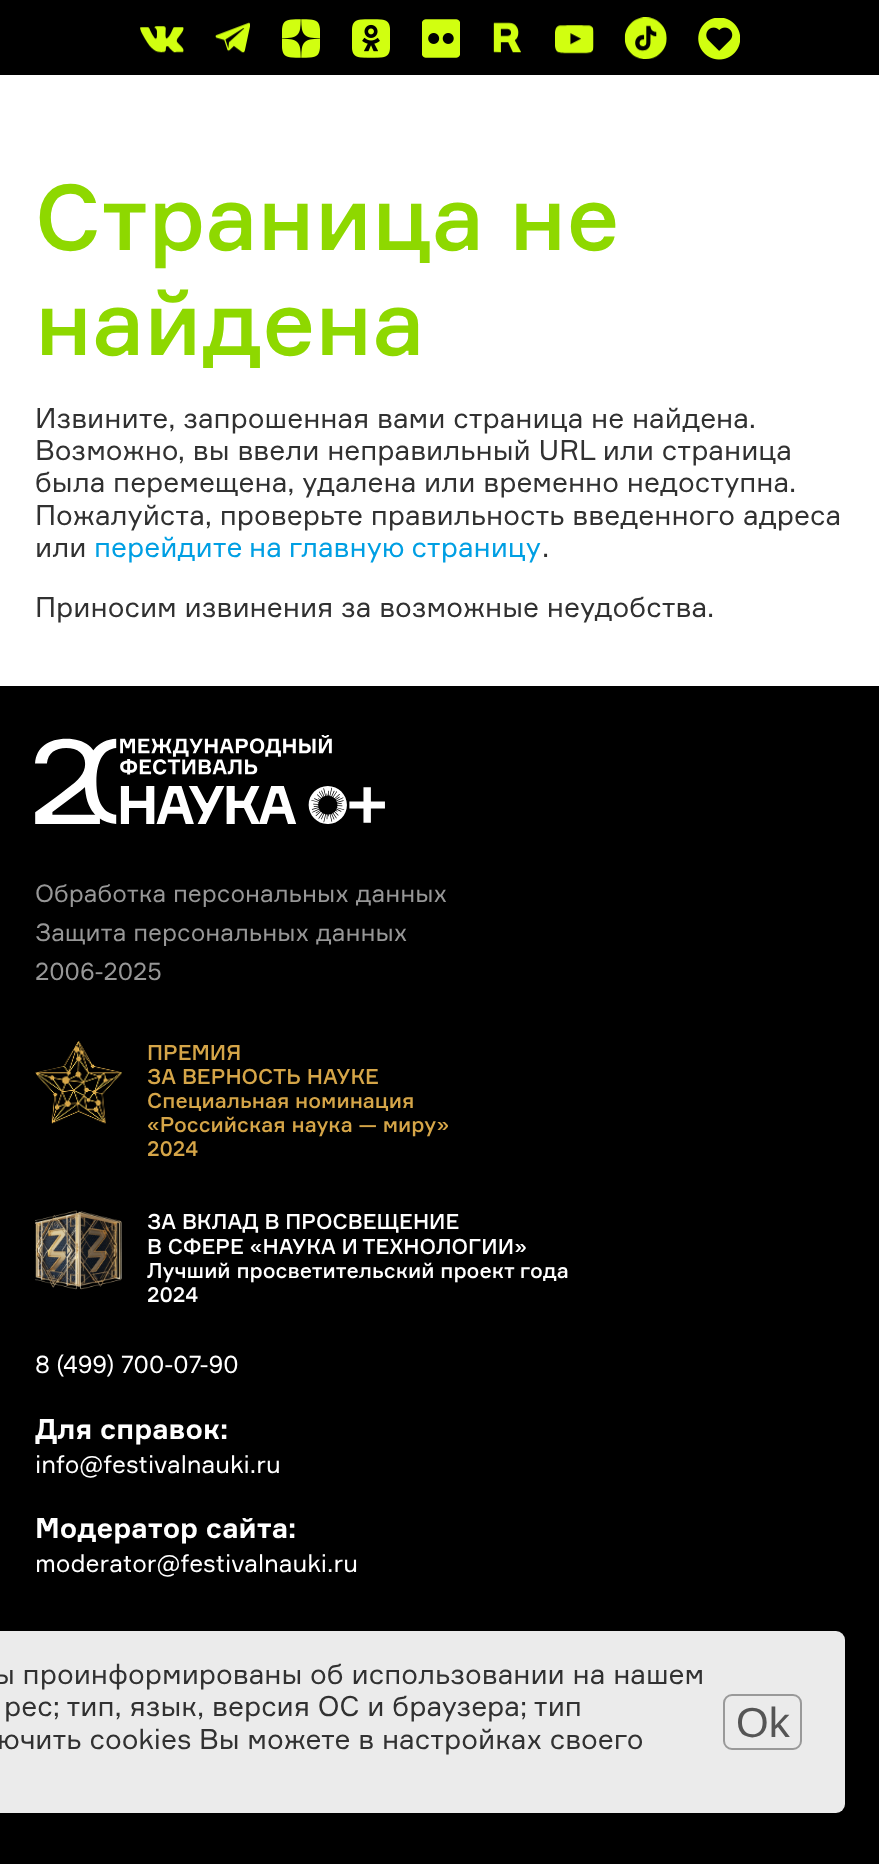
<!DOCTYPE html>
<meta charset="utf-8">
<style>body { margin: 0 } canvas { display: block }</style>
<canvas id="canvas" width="879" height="1864"></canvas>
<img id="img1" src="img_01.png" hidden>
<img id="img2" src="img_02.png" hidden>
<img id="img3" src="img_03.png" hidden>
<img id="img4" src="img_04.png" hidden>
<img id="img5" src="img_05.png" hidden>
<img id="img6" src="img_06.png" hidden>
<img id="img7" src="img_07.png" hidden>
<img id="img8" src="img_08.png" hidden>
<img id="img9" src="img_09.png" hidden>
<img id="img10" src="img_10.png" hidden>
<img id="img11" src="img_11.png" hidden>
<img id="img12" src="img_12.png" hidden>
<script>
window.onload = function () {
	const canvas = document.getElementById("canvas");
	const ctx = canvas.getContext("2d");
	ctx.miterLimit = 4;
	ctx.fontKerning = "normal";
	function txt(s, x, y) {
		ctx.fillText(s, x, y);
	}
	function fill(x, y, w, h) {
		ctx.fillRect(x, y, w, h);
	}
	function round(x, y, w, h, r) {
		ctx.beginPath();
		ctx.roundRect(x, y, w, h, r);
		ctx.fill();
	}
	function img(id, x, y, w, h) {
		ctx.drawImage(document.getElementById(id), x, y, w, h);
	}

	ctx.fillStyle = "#FFFFFF";
	fill(0, 0, 879, 1864);
	ctx.fillStyle = "#000000";
	fill(0, 0, 879, 75);
	img("img1", 140, 26, 44, 27);
	img("img2", 215, 22, 35, 31);
	img("img3", 282, 19, 38, 39);
	img("img4", 352, 19, 38, 39);
	img("img5", 422, 19, 38, 39);
	img("img6", 493, 22, 28, 31);
	img("img7", 555, 25, 39, 29);
	img("img8", 624, 17, 43, 42);
	img("img9", 698, 18, 42, 42);
	fill(0, 686, 879, 1178);
	img("img10", 35, 735, 350, 89);
	img("img11", 35, 1041, 87, 83);
	img("img12", 35, 1210, 87, 80);
	ctx.fillStyle = "#EBEBEB";
	round(-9, 1631, 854, 182, 9);
	ctx.beginPath();
	ctx.roundRect(724, 1695, 77, 54, 8);
	ctx.strokeStyle = "#999999";
	ctx.lineWidth = 2;
	ctx.stroke();
	ctx.font = "500 91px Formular";
	ctx.fillStyle = "#8ED800";
	txt("Страница не", 35, 250);
	txt("найдена", 35, 355);
	ctx.font = "28px Formular";
	ctx.fillStyle = "#313131";
	txt("Извините, запрошенная вами страница не найдена.", 35, 428);
	txt("Возможно, вы ввели неправильный URL или страница", 35, 460);
	txt("была перемещена, удалена или временно недоступна.", 35, 492);
	txt("Пожалуйста, проверьте правильность введенного адреса", 35, 525);
	txt("или", 35, 557);
	ctx.wordSpacing = "-1px";
	ctx.fillStyle = "#009FE3";
	txt("перейдите на главную страницу", 94, 557);
	ctx.wordSpacing = "0px";
	ctx.fillStyle = "#313131";
	txt(".", 542, 557);
	txt("Приносим извинения за возможные неудобства.", 35, 617);
	ctx.font = "24.5px Formular";
	ctx.fillStyle = "#979797";
	txt("Обработка персональных данных", 35, 902);
	txt("Защита персональных данных", 35, 941);
	txt("2006-2025", 35, 980);
	ctx.font = "500 21px Formular";
	ctx.fillStyle = "#D5A548";
	txt("ПРЕМИЯ", 147, 1060);
	txt("ЗА ВЕРНОСТЬ НАУКЕ", 147, 1084);
	txt("Специальная номинация", 147, 1108);
	txt("«Российская наука — миру»", 147, 1132);
	txt("2024", 147, 1156);
	ctx.fillStyle = "#FFFFFF";
	txt("ЗА ВКЛАД В ПРОСВЕЩЕНИЕ", 147, 1229);
	txt("В СФЕРЕ «НАУКА И ТЕХНОЛОГИИ»", 147, 1254);
	txt("Лучший просветительский проект года", 147, 1278);
	txt("2024", 147, 1302);
	ctx.font = "24.5px Formular";
	txt("8 (499) 700-07-90", 35, 1373);
	ctx.font = "bold 28px Formular";
	txt("Для справок:", 35, 1439);
	ctx.font = "24.5px Formular";
	txt("info@festivalnauki.ru", 35, 1473);
	ctx.font = "bold 28px Formular";
	txt("Модератор сайта:", 35, 1538);
	ctx.font = "24.5px Formular";
	txt("moderator@festivalnauki.ru", 35, 1572);
	ctx.font = "28px Formular";
	ctx.fillStyle = "#313131";
	txt("ы проинформированы об использовании на нашем", -6, 1684);
	txt("рес; тип, язык, версия ОС и браузера; тип", 4, 1716);
	txt("ючить cookies Вы можете в настройках своего", -3, 1749);
	ctx.font = "42px Liberation Sans";
	ctx.fillStyle = "#555555";
	txt("Ok", 736, 1737);
};
</script>
